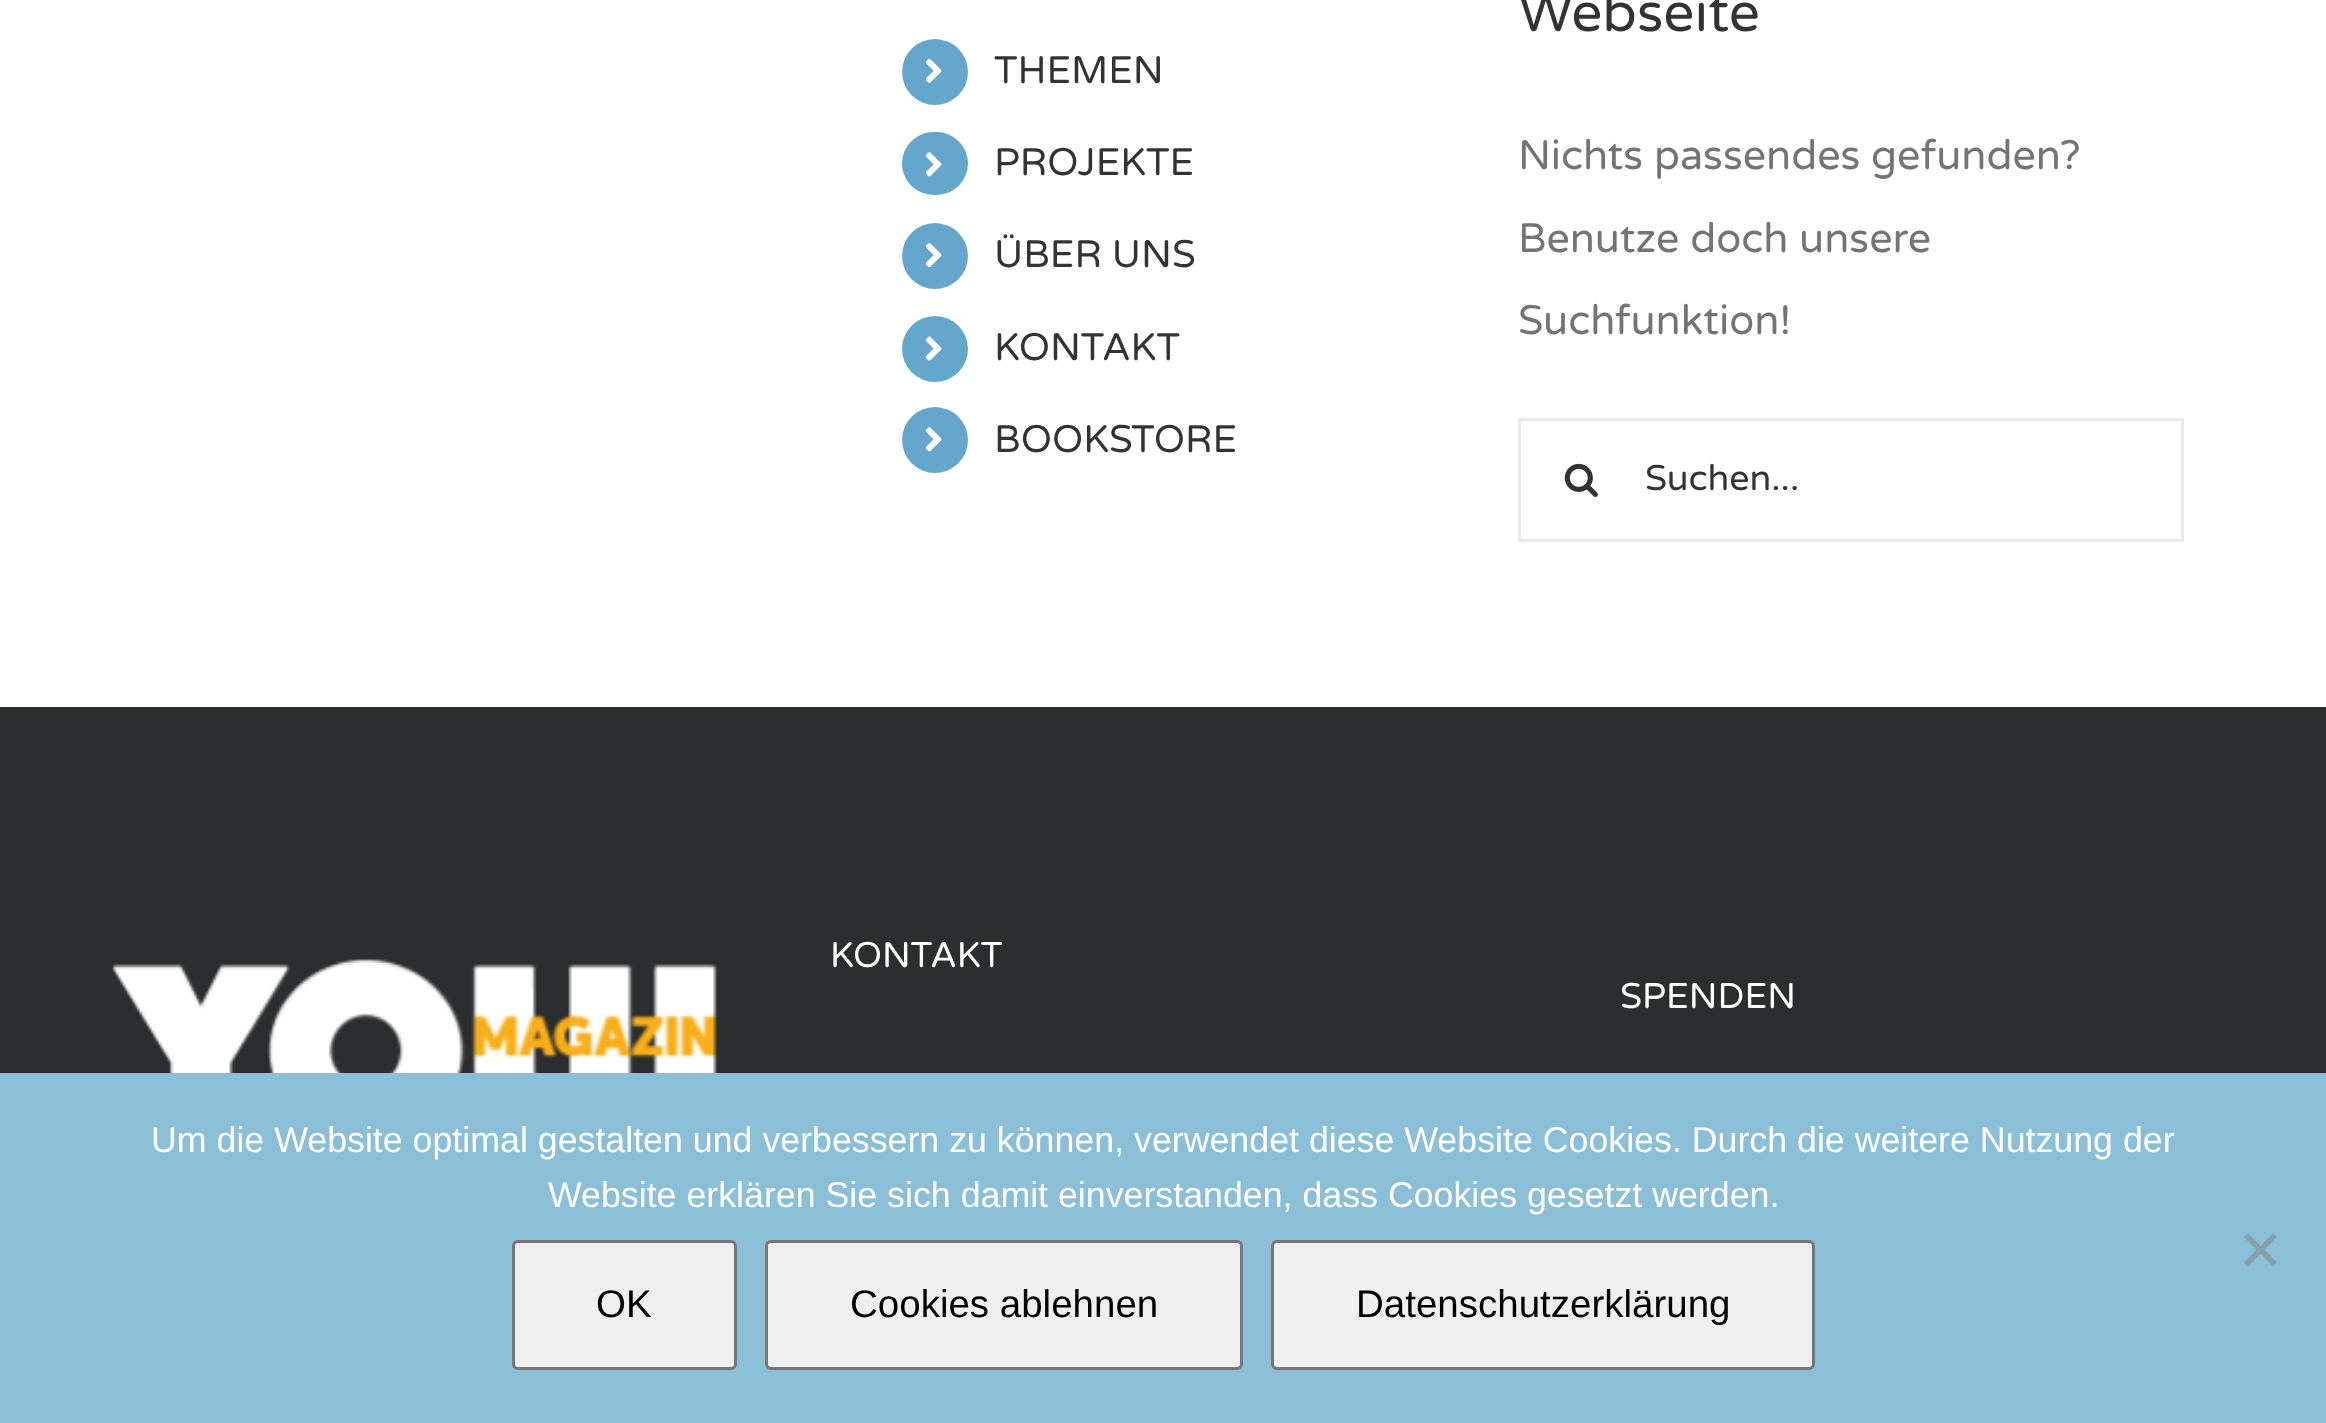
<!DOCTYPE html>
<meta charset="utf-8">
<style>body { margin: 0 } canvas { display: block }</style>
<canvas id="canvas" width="2326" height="1423"></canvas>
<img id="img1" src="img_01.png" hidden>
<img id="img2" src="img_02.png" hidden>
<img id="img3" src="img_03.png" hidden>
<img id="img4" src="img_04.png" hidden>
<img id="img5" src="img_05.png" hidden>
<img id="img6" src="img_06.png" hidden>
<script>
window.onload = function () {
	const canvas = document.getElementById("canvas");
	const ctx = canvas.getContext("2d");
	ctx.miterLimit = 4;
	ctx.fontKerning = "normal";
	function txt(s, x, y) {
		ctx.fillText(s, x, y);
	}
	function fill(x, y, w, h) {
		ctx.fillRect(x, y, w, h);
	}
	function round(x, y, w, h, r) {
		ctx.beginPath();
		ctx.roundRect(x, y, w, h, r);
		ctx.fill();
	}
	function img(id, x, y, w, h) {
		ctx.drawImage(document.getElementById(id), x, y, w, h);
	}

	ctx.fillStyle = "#FFFFFF";
	fill(0, 0, 2326, 1423);
	ctx.fillStyle = "#65A7CC";
	ctx.beginPath();
	ctx.arc(935, 72, 33, 0, Math.PI * 2);
	ctx.fill();
	img("img1", 925, 58, 17, 25);
	round(902, 132, 66, 63, 31.5);
	img("img2", 925, 152, 17, 25);
	ctx.beginPath();
	ctx.arc(935, 256, 33, 0, Math.PI * 2);
	ctx.fill();
	img("img3", 925, 243, 17, 25);
	ctx.beginPath();
	ctx.arc(935, 349, 33, 0, Math.PI * 2);
	ctx.fill();
	img("img4", 925, 336, 17, 25);
	ctx.beginPath();
	ctx.arc(935, 440, 33, 0, Math.PI * 2);
	ctx.fill();
	img("img2", 925, 427, 17, 25);
	ctx.strokeStyle = "#EAEAEA";
	ctx.lineWidth = 3;
	ctx.strokeRect(1519.5, 419.5, 663, 121);
	img("img5", 1564, 463, 34, 34);
	ctx.fillStyle = "#2C2D2F";
	fill(0, 707, 2326, 366);
	img("img6", 112, 959, 605, 114);
	ctx.fillStyle = "#8BBED7";
	fill(0, 1073, 2326, 350);
	ctx.fillStyle = "#869FAC";
	ctx.beginPath();
	ctx.moveTo(2273, 1233.5);
	ctx.lineTo(2277, 1237);
	ctx.lineTo(2248, 1266.5);
	ctx.lineTo(2244, 1262.5);
	ctx.closePath();
	ctx.fill();
	ctx.beginPath();
	ctx.moveTo(2244, 1237);
	ctx.lineTo(2248, 1233.5);
	ctx.lineTo(2277, 1262.5);
	ctx.lineTo(2273, 1266.5);
	ctx.closePath();
	ctx.fill();
	ctx.fillStyle = "#EFEFEF";
	ctx.beginPath();
	ctx.roundRect(513.5, 1241.5, 222, 127, 4.5);
	ctx.fill();
	ctx.strokeStyle = "#767676";
	ctx.stroke();
	ctx.beginPath();
	ctx.roundRect(766.5, 1241.5, 475, 127, 4.5);
	ctx.fill();
	ctx.stroke();
	ctx.beginPath();
	ctx.roundRect(1272.5, 1241.5, 541, 127, 4.5);
	ctx.fill();
	ctx.stroke();
	ctx.font = "38.5px Varela Round";
	ctx.fillStyle = "#333333";
	txt("THEMEN", 994, 83);
	txt("PROJEKTE", 994, 175);
	txt("ÜBER UNS", 994, 267);
	txt("KONTAKT", 994, 360);
	txt("BOOKSTORE", 994, 452);
	ctx.font = "55px Varela Round";
	txt("Webseite", 1518, 31);
	ctx.font = "41.25px Varela Round";
	ctx.fillStyle = "#747474";
	txt("Nichts passendes gefunden?", 1518, 169);
	txt("Benutze doch unsere", 1518, 252);
	txt("Suchfunktion!", 1518, 334);
	ctx.font = "35.75px Varela Round";
	ctx.fillStyle = "#333333";
	txt("Suchen...", 1645, 490);
	ctx.fillStyle = "#FFFFFF";
	txt("KONTAKT", 830, 967);
	txt("SPENDEN", 1620, 1008);
	ctx.font = "35.75px Liberation Sans";
	txt("Um die Website optimal gestalten und verbessern zu können, verwendet diese Website Cookies. Durch die weitere Nutzung der", 151, 1152);
	txt("Website erklären Sie sich damit einverstanden, dass Cookies gesetzt werden.", 548, 1207);
	ctx.font = "38.5px Liberation Sans";
	ctx.fillStyle = "#000000";
	txt("OK", 596, 1317);
	txt("Cookies ablehnen", 850, 1317);
	txt("Datenschutzerklärung", 1356, 1317);
};
</script>
